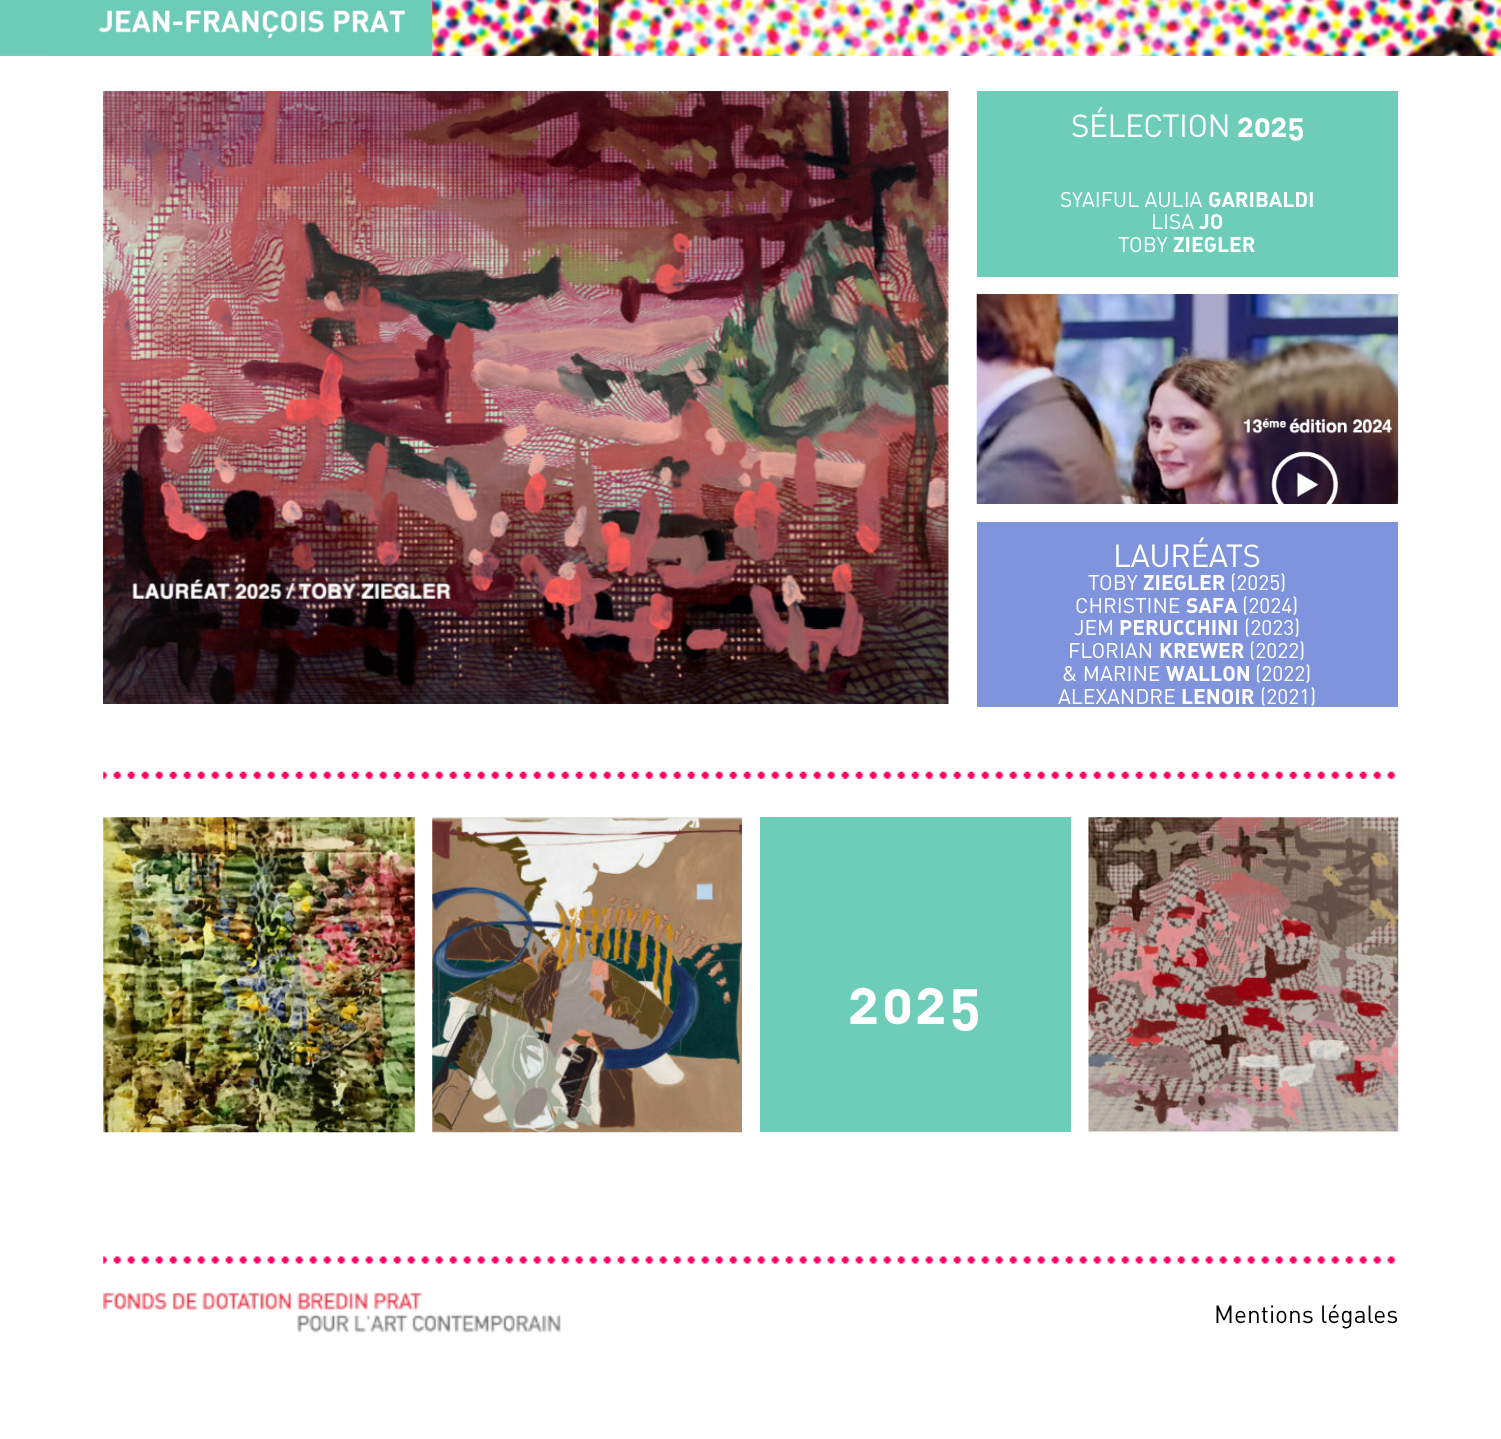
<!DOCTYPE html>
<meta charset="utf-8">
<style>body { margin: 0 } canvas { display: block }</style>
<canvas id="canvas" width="1501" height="1439"></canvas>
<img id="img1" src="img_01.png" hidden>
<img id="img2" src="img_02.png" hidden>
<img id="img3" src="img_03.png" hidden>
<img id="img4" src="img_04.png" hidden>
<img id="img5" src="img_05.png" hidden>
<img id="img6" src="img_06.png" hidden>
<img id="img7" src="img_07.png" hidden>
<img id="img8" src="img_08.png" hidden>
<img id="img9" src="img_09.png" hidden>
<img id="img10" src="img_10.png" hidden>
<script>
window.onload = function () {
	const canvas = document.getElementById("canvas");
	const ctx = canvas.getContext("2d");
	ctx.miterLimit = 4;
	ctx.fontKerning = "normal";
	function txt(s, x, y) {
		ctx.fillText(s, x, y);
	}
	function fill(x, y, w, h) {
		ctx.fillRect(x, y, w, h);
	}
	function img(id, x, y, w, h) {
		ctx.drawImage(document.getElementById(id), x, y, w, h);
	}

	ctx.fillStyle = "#FFFFFF";
	fill(0, 0, 1501, 1439);
	img("img1", 432, 0, 1069, 56);
	img("img2", 0, 0, 433, 56);
	img("img3", 103, 91, 846, 613);
	ctx.fillStyle = "#6DCDB8";
	fill(977, 91, 421, 186);
	img("img4", 976, 294, 423, 210);
	ctx.fillStyle = "#8094DD";
	fill(977, 522, 421, 185);
	img("img5", 103, 771, 1293, 8);
	img("img6", 103, 817, 312, 316);
	img("img7", 432, 817, 310, 316);
	ctx.fillStyle = "#6DCDB8";
	fill(760, 817, 311, 315);
	img("img8", 1088, 817, 311, 316);
	img("img9", 103, 1256, 1293, 8);
	img("img10", 103, 1292, 458, 41);
	ctx.letterSpacing = "-0.5px";
	ctx.font = "31.5px DIN";
	ctx.fillStyle = "#FFFFFF";
	txt("SÉLECTION", 1071, 137);
	ctx.font = "bold 31.5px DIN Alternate";
	txt("2025", 1237, 137);
	ctx.letterSpacing = "0px";
	ctx.font = "21px DIN";
	txt("SYAIFUL AULIA", 1060, 207);
	ctx.font = "bold 21px DIN Alternate";
	txt("GARIBALDI", 1208, 207);
	ctx.font = "21px DIN";
	txt("LISA", 1151, 229);
	ctx.font = "bold 21px DIN Alternate";
	txt("JO", 1199, 229);
	ctx.font = "21px DIN";
	txt("TOBY", 1118, 252);
	ctx.font = "bold 21px DIN Alternate";
	txt("ZIEGLER", 1173, 252);
	ctx.letterSpacing = "-0.5px";
	ctx.font = "31.5px DIN";
	txt("LAURÉATS", 1113, 567);
	ctx.letterSpacing = "0px";
	ctx.font = "21px DIN";
	txt("TOBY", 1088, 590);
	ctx.font = "bold 21px DIN Alternate";
	txt("ZIEGLER", 1143, 590);
	ctx.font = "21px DIN";
	txt("(2025)", 1230, 590);
	txt("CHRISTINE", 1075, 613);
	ctx.font = "bold 21px DIN Alternate";
	txt("SAFA", 1186, 613);
	ctx.font = "21px DIN";
	txt("(2024)", 1242, 613);
	txt("JEM", 1074, 635);
	ctx.font = "bold 21px DIN Alternate";
	txt("PERUCCHINI", 1119, 635);
	ctx.font = "21px DIN";
	txt("(2023)", 1244, 635);
	txt("FLORIAN", 1068, 658);
	ctx.font = "bold 21px DIN Alternate";
	txt("KREWER", 1159, 658);
	ctx.font = "21px DIN";
	txt("(2022)", 1249, 658);
	txt("& MARINE", 1062, 681);
	ctx.font = "bold 21px DIN Alternate";
	txt("WALLON", 1166, 681);
	ctx.font = "21px DIN";
	txt("(2022)", 1255, 681);
	txt("ALEXANDRE", 1058, 704);
	ctx.font = "bold 21px DIN Alternate";
	txt("LENOIR", 1181, 704);
	ctx.font = "21px DIN";
	txt("(2021)", 1260, 704);
	ctx.letterSpacing = "2px";
	ctx.font = "bold 58px DIN Alternate";
	txt("2025", 848, 1024);
	ctx.letterSpacing = "0px";
	ctx.font = "24.5px DIN";
	ctx.fillStyle = "#000000";
	txt("Mentions légales", 1214, 1323);
};
</script>
